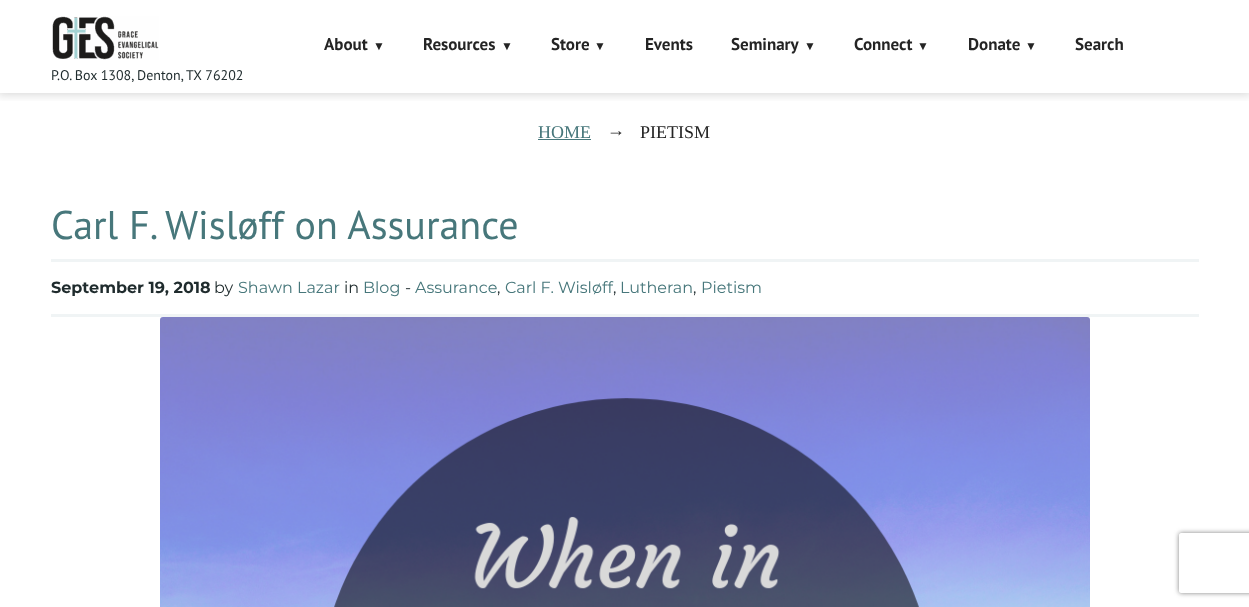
<!DOCTYPE html>
<meta charset="utf-8">
<style>body { margin: 0 } canvas { display: block }</style>
<canvas id="canvas" width="1249" height="607"></canvas>
<img id="img1" src="img_01.png" hidden>
<img id="img2" src="img_02.png" hidden>
<script>
window.onload = function () {
	const canvas = document.getElementById("canvas");
	const ctx = canvas.getContext("2d");
	ctx.miterLimit = 4;
	ctx.fontKerning = "normal";
	function txt(s, x, y) {
		ctx.fillText(s, x, y);
	}
	function fill(x, y, w, h) {
		ctx.fillRect(x, y, w, h);
	}
	function img(id, x, y, w, h) {
		ctx.drawImage(document.getElementById(id), x, y, w, h);
	}

	ctx.fillStyle = "#FFFFFF";
	fill(0, 0, 1249, 607);
	ctx.save();
	ctx.beginPath();
	ctx.rect(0, 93, 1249, 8);
	ctx.clip();
	ctx.fillStyle = "rgba(0, 0, 0, 0.15)";
	ctx.filter = "blur(5px)";
	ctx.beginPath();
	ctx.rect(-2, -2, 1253, 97);
	ctx.fill();
	ctx.filter = "none";
	ctx.restore();
	img("img1", 52, 16, 107, 44);
	ctx.fillStyle = "#47777B";
	fill(538, 139, 53, 1);
	ctx.fillStyle = "#F0F4F5";
	fill(51, 259, 1148, 3);
	fill(51, 314, 1148, 3);
	img("img2", 160, 317, 930, 290);
	ctx.save();
	ctx.beginPath();
	ctx.moveTo(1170, 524);
	ctx.lineTo(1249, 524);
	ctx.lineTo(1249, 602);
	ctx.lineTo(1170, 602);
	ctx.closePath();
	ctx.moveTo(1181, 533);
	ctx.lineTo(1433, 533);
	ctx.bezierCurveTo(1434, 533, 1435, 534, 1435, 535);
	ctx.lineTo(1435, 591);
	ctx.bezierCurveTo(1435, 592, 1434, 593, 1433, 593);
	ctx.lineTo(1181, 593);
	ctx.bezierCurveTo(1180, 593, 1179, 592, 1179, 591);
	ctx.lineTo(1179, 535);
	ctx.bezierCurveTo(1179, 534, 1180, 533, 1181, 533);
	ctx.closePath();
	ctx.clip("evenodd");
	ctx.fillStyle = "#808080";
	ctx.filter = "blur(2.5px)";
	ctx.beginPath();
	ctx.roundRect(1179, 533, 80, 60, 2);
	ctx.fill();
	ctx.filter = "none";
	ctx.restore();
	ctx.font = "bold 17px PT Sans";
	ctx.fillStyle = "#242424";
	txt("About", 324, 50);
	ctx.font = "bold 12px Liberation Sans";
	txt("▼", 373, 50);
	ctx.font = "bold 17px PT Sans";
	txt("Resources", 423, 50);
	ctx.font = "bold 12px Liberation Sans";
	txt("▼", 501, 50);
	ctx.font = "bold 17px PT Sans";
	txt("Store", 551, 50);
	ctx.font = "bold 12px Liberation Sans";
	txt("▼", 594, 50);
	ctx.font = "bold 17px PT Sans";
	txt("Events", 645, 50);
	txt("Seminary", 731, 50);
	ctx.font = "bold 12px Liberation Sans";
	txt("▼", 804, 50);
	ctx.font = "bold 17px PT Sans";
	txt("Connect", 854, 50);
	ctx.font = "bold 12px Liberation Sans";
	txt("▼", 917, 50);
	ctx.font = "bold 17px PT Sans";
	txt("Donate", 968, 50);
	ctx.font = "bold 12px Liberation Sans";
	txt("▼", 1025, 50);
	ctx.font = "bold 17px PT Sans";
	txt("Search", 1075, 50);
	ctx.font = "14px PT Sans";
	ctx.fillStyle = "#1F2B2D";
	txt("P.O. Box 1308, Denton, TX 76202", 51, 80);
	ctx.font = "18px Liberation Serif";
	ctx.fillStyle = "#47777B";
	txt("HOME", 538, 138);
	ctx.fillStyle = "#242424";
	txt("→", 607, 136);
	txt("PIETISM", 640, 138);
	ctx.font = "40px PT Sans";
	ctx.fillStyle = "#47777B";
	txt("Carl F. Wisløff on Assurance", 51, 239);
	ctx.font = "bold 16px Montserrat";
	ctx.fillStyle = "#1F2B2D";
	txt("September 19, 2018", 51, 293);
	ctx.font = "16px Montserrat";
	txt("by", 214, 293);
	ctx.fillStyle = "#47777B";
	txt("Shawn Lazar", 238, 293);
	ctx.fillStyle = "#1F2B2D";
	txt("in", 344, 293);
	ctx.fillStyle = "#47777B";
	txt("Blog", 363, 293);
	ctx.fillStyle = "#1F2B2D";
	txt("-", 405, 293);
	ctx.fillStyle = "#47777B";
	txt("Assurance", 415, 293);
	txt("Carl F. Wisløff", 505, 293);
	txt("Lutheran", 620, 293);
	txt("Pietism", 701, 293);
	ctx.fillStyle = "#1F2B2D";
	txt(",", 497, 293);
	txt(",", 613, 293);
	txt(",", 693, 293);
};
</script>
